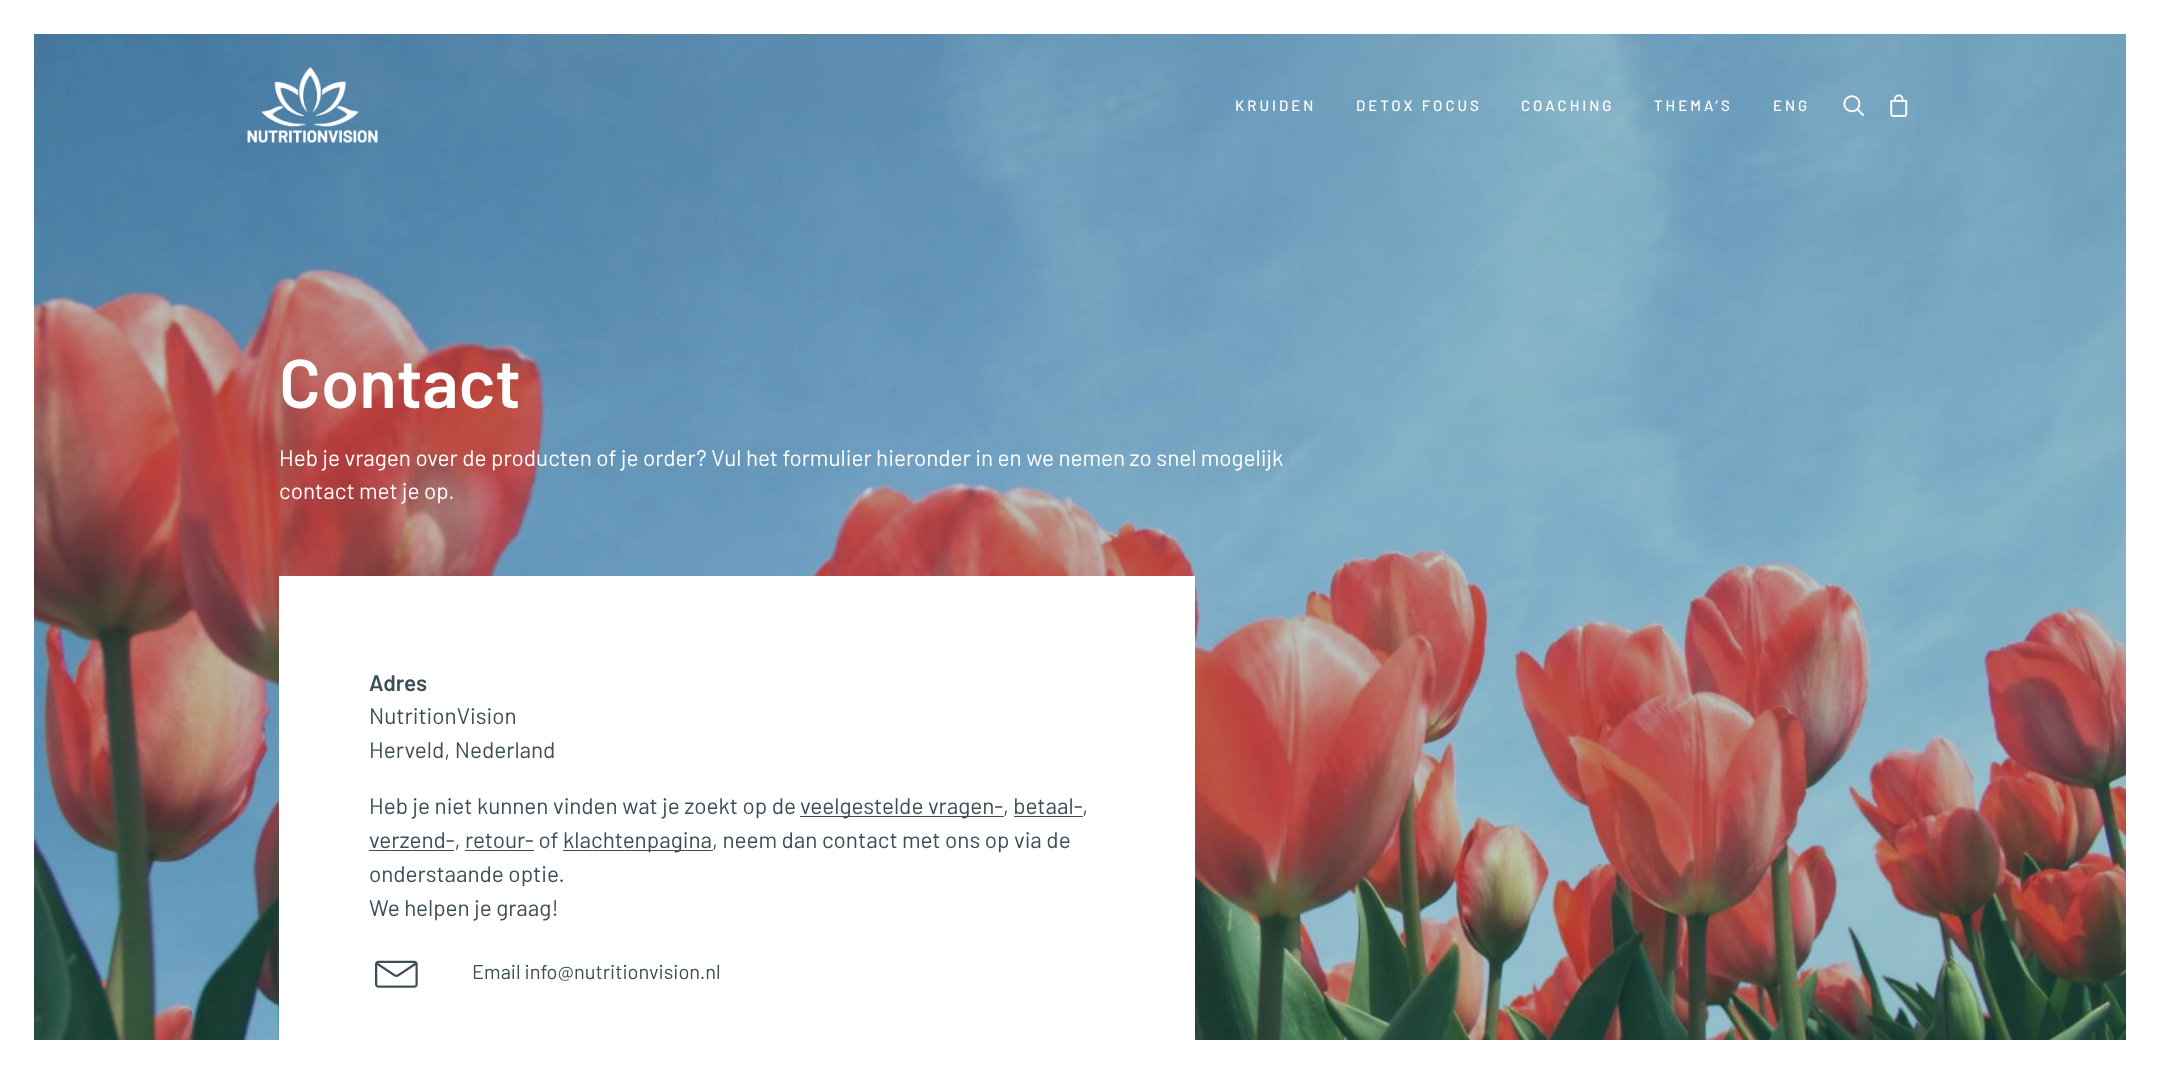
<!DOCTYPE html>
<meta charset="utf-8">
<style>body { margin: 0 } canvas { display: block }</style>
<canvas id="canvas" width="2160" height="1073"></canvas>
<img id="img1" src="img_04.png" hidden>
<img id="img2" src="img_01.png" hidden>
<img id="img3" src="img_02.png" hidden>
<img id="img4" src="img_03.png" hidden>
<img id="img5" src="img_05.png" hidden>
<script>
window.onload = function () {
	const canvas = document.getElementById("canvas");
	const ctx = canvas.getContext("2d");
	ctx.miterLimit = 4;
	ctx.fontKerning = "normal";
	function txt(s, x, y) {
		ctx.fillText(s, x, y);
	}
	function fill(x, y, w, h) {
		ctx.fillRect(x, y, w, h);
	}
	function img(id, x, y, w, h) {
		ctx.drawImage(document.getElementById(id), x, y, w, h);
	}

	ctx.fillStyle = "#FFFFFF";
	fill(0, 0, 2160, 1073);
	img("img1", 34, 34, 2092, 1006);
	img("img2", 247, 67, 131, 76);
	img("img3", 1843, 95, 21, 21);
	img("img4", 1890, 94, 18, 23);
	fill(279, 576, 916, 464);
	ctx.fillStyle = "#3C4E57";
	fill(800, 816, 204, 1);
	fill(1014, 816, 69, 1);
	fill(369, 850, 85, 1);
	fill(563, 850, 150, 1);
	fill(465, 850, 69, 1);
	img("img5", 375, 960, 43, 28);
	ctx.letterSpacing = "3px";
	ctx.font = "500 15px Barlow";
	ctx.fillStyle = "#FFFFFF";
	txt("KRUIDEN", 1235, 111);
	txt("DETOX FOCUS", 1356, 111);
	txt("COACHING", 1521, 111);
	txt("THEMA’S", 1654, 111);
	txt("ENG", 1773, 111);
	ctx.letterSpacing = "0px";
	ctx.font = "600 69px Barlow";
	txt("Contact", 279, 408);
	ctx.font = "22.5px Barlow";
	txt("Heb je vragen over de producten of je order? Vul het formulier hieronder in en we nemen zo snel mogelijk", 279, 466);
	txt("contact met je op.", 279, 499);
	ctx.font = "600 22.5px Barlow";
	ctx.fillStyle = "#3C4E57";
	txt("Adres", 369, 691);
	ctx.font = "22.5px Barlow";
	txt("NutritionVision", 369, 724);
	txt("Herveld, Nederland", 369, 758);
	txt("Heb je niet kunnen vinden wat je zoekt op de", 369, 814);
	txt("veelgestelde vragen-, betaal-,", 800, 814);
	txt("verzend-, retour- of", 369, 848);
	txt("klachtenpagina, neem dan contact met ons op via de", 563, 848);
	txt("onderstaande optie.", 369, 882);
	txt("We helpen je graag!", 369, 916);
	ctx.font = "20px Barlow";
	txt("Email info@nutritionvision.nl", 472, 979);
};
</script>
